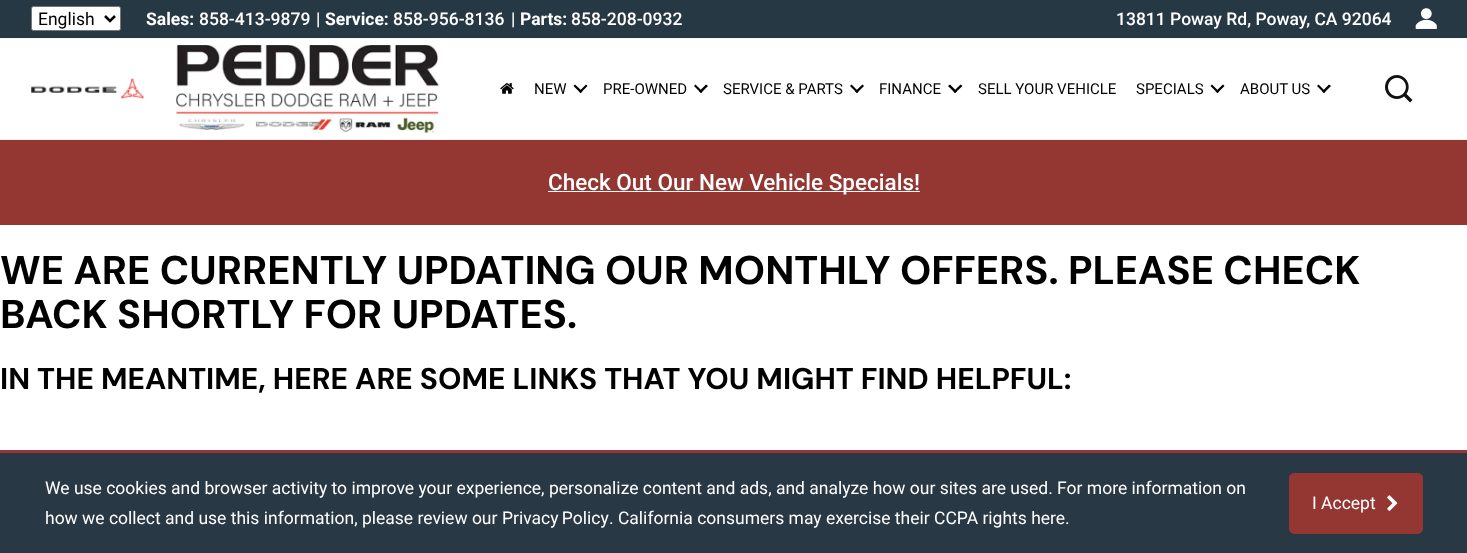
<!DOCTYPE html>
<meta charset="utf-8">
<style>body { margin: 0 } canvas { display: block }</style>
<canvas id="canvas" width="1467" height="553"></canvas>
<img id="img1" src="img_01.png" hidden>
<img id="img2" src="img_03.png" hidden>
<img id="img3" src="img_02.png" hidden>
<img id="img4" src="img_04.png" hidden>
<img id="img5" src="img_05.png" hidden>
<img id="img6" src="img_06.png" hidden>
<img id="img7" src="img_07.png" hidden>
<script>
window.onload = function () {
	const canvas = document.getElementById("canvas");
	const ctx = canvas.getContext("2d");
	ctx.miterLimit = 4;
	ctx.fontKerning = "normal";
	function txt(s, x, y) {
		ctx.fillText(s, x, y);
	}
	function fill(x, y, w, h) {
		ctx.fillRect(x, y, w, h);
	}
	function img(id, x, y, w, h) {
		ctx.drawImage(document.getElementById(id), x, y, w, h);
	}

	ctx.fillStyle = "#FFFFFF";
	fill(0, 0, 1467, 553);
	ctx.fillStyle = "#273845";
	fill(0, 0, 1467, 38);
	ctx.fillStyle = "#F5F5F5";
	fill(0, 38, 1467, 1);
	ctx.fillStyle = "#FFFFFF";
	ctx.beginPath();
	ctx.roundRect(31.5, 6.5, 89, 24, 2);
	ctx.fill();
	ctx.strokeStyle = "#767676";
	ctx.stroke();
	ctx.beginPath();
	ctx.moveTo(105, 16);
	ctx.lineTo(110, 21);
	ctx.lineTo(115, 16);
	ctx.strokeStyle = "#000000";
	ctx.lineWidth = 2.5;
	ctx.stroke();
	img("img1", 1415, 8, 22, 21);
	ctx.fillStyle = "#F5F5F5";
	fill(0, 139, 1467, 1);
	img("img2", 31, 89, 1, 2);
	img("img3", 31, 78, 113, 21);
	img("img4", 176, 45, 263, 88);
	img("img5", 500, 83, 14, 11);
	ctx.fillStyle = "#000000";
	ctx.beginPath();
	ctx.moveTo(586, 84.5);
	ctx.lineTo(587.5, 86);
	ctx.lineTo(580.5, 93);
	ctx.lineTo(579, 91.5);
	ctx.closePath();
	ctx.fill();
	ctx.beginPath();
	ctx.moveTo(575, 84.5);
	ctx.lineTo(582.5, 91.5);
	ctx.lineTo(580.5, 93);
	ctx.lineTo(573.5, 86);
	ctx.closePath();
	ctx.fill();
	ctx.beginPath();
	ctx.moveTo(706, 84.5);
	ctx.lineTo(708, 86);
	ctx.lineTo(701, 93);
	ctx.lineTo(699, 91.5);
	ctx.closePath();
	ctx.fill();
	ctx.beginPath();
	ctx.moveTo(695.5, 84.5);
	ctx.lineTo(702.5, 91.5);
	ctx.lineTo(701, 93);
	ctx.lineTo(694, 86);
	ctx.closePath();
	ctx.fill();
	ctx.beginPath();
	ctx.moveTo(862.5, 84.5);
	ctx.lineTo(864, 86);
	ctx.lineTo(857, 93);
	ctx.lineTo(855, 91.5);
	ctx.closePath();
	ctx.fill();
	ctx.beginPath();
	ctx.moveTo(851.5, 84.5);
	ctx.lineTo(858.5, 91.5);
	ctx.lineTo(857, 93);
	ctx.lineTo(850, 86);
	ctx.closePath();
	ctx.fill();
	ctx.beginPath();
	ctx.moveTo(960.5, 84.5);
	ctx.lineTo(962.5, 86);
	ctx.lineTo(955, 93);
	ctx.lineTo(953.5, 91.5);
	ctx.closePath();
	ctx.fill();
	ctx.beginPath();
	ctx.moveTo(950, 84.5);
	ctx.lineTo(957, 91.5);
	ctx.lineTo(955, 93);
	ctx.lineTo(948, 86);
	ctx.closePath();
	ctx.fill();
	ctx.beginPath();
	ctx.moveTo(1223, 84.5);
	ctx.lineTo(1224.5, 86);
	ctx.lineTo(1217.5, 93);
	ctx.lineTo(1215.5, 91.5);
	ctx.closePath();
	ctx.fill();
	ctx.beginPath();
	ctx.moveTo(1212, 84.5);
	ctx.lineTo(1219, 91.5);
	ctx.lineTo(1217.5, 93);
	ctx.lineTo(1210.5, 86);
	ctx.closePath();
	ctx.fill();
	ctx.beginPath();
	ctx.moveTo(1329, 84.5);
	ctx.lineTo(1331, 86);
	ctx.lineTo(1324, 93);
	ctx.lineTo(1322, 91.5);
	ctx.closePath();
	ctx.fill();
	ctx.beginPath();
	ctx.moveTo(1318.5, 84.5);
	ctx.lineTo(1325.5, 91.5);
	ctx.lineTo(1324, 93);
	ctx.lineTo(1317, 86);
	ctx.closePath();
	ctx.fill();
	img("img6", 1385, 75, 28, 28);
	ctx.fillStyle = "#943732";
	fill(0, 140, 1467, 85);
	ctx.fillStyle = "#FFFFFF";
	fill(548, 191, 372, 1);
	ctx.fillStyle = "#283845";
	fill(0, 453, 1467, 100);
	ctx.fillStyle = "#943732";
	fill(0, 450, 1467, 3);
	ctx.beginPath();
	ctx.roundRect(1289.5, 473.5, 133, 60, 4.5);
	ctx.fill();
	ctx.strokeStyle = "#943732";
	ctx.lineWidth = 1;
	ctx.stroke();
	img("img7", 1387, 495, 11, 16);
	ctx.font = "17.5px Roboto";
	ctx.fillStyle = "#000000";
	txt("English", 38, 25);
	ctx.font = "bold 17.5px Roboto";
	ctx.fillStyle = "#FFFFFF";
	txt("Sales:", 146, 25);
	ctx.font = "500 17.5px Roboto";
	txt("858-413-9879", 199, 25);
	txt("|", 316, 25);
	ctx.font = "bold 17.5px Roboto";
	txt("Service:", 325, 25);
	ctx.font = "500 17.5px Roboto";
	txt("858-956-8136", 393, 25);
	txt("|", 511, 25);
	ctx.font = "bold 17.5px Roboto";
	txt("Parts:", 520, 25);
	ctx.font = "500 17.5px Roboto";
	txt("858-208-0932", 571, 25);
	txt("13811 Poway Rd, Poway, CA 92064", 1116, 25);
	ctx.font = "15px Roboto";
	ctx.fillStyle = "#000000";
	txt("NEW", 534, 94);
	txt("PRE-OWNED", 603, 94);
	txt("SERVICE & PARTS", 723, 94);
	txt("FINANCE", 879, 94);
	txt("SELL YOUR VEHICLE", 978, 94);
	txt("SPECIALS", 1136, 94);
	txt("ABOUT US", 1240, 94);
	ctx.font = "500 22.5px Roboto";
	ctx.fillStyle = "#FFFFFF";
	txt("Check Out Our New Vehicle Specials!", 548, 190);
	ctx.font = "bold 40px DM Sans";
	ctx.fillStyle = "#000000";
	txt("WE ARE CURRENTLY UPDATING OUR MONTHLY OFFERS. PLEASE CHECK", 0, 284);
	txt("BACK SHORTLY FOR UPDATES.", 0, 328);
	ctx.font = "bold 30px DM Sans";
	txt("IN THE MEANTIME, HERE ARE SOME LINKS THAT YOU MIGHT FIND HELPFUL:", 0, 389);
	ctx.font = "17.5px Roboto";
	ctx.fillStyle = "#FFFFFF";
	txt("We use cookies and browser activity to improve your experience, personalize content and ads, and analyze how our sites are used. For more information on", 45, 494);
	txt("how we collect and use this information, please review our", 45, 524);
	ctx.wordSpacing = "-1px";
	txt("Privacy Policy", 502, 524);
	ctx.wordSpacing = "0px";
	txt(". California consumers may exercise their CCPA rights here.", 609, 524);
	txt("I Accept", 1312, 509);
};
</script>
